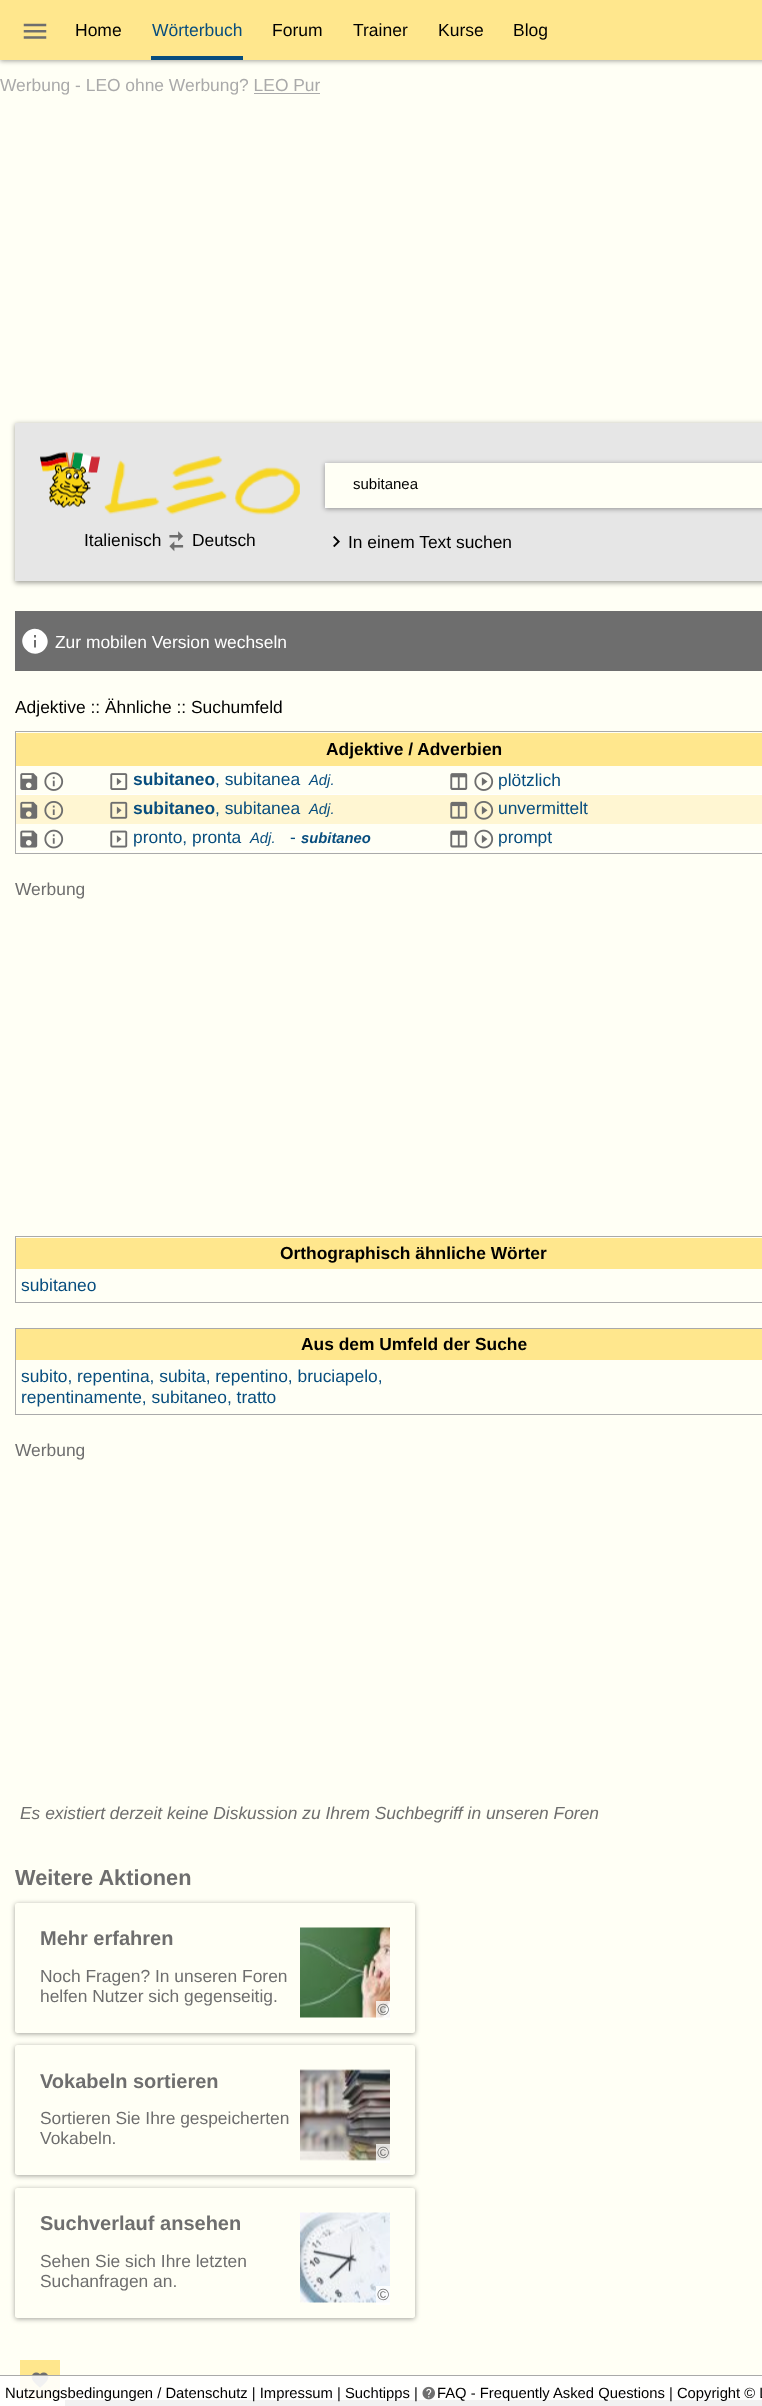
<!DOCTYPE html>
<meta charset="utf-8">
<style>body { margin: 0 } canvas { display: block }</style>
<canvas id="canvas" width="762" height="2406"></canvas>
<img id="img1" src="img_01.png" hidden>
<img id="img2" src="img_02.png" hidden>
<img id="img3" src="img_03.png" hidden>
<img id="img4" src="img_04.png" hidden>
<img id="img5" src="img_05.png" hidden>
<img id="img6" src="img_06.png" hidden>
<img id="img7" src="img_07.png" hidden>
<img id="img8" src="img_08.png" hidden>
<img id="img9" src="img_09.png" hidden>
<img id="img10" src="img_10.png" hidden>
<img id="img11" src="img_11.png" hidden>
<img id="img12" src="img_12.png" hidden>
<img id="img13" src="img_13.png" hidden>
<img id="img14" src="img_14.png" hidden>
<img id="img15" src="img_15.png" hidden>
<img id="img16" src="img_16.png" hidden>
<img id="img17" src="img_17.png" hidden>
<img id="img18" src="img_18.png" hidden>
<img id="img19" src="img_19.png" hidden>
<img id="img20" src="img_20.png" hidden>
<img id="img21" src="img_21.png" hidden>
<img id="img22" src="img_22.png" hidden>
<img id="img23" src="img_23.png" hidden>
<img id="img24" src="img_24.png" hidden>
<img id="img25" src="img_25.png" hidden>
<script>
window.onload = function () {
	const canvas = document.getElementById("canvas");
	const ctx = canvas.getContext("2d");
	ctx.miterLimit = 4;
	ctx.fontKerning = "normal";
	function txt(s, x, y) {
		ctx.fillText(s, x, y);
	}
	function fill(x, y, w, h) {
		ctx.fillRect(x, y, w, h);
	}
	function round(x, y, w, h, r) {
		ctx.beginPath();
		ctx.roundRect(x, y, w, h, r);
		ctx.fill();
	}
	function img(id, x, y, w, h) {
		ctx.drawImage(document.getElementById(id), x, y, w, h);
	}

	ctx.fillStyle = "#FFFFF5";
	fill(0, 0, 762, 2406);
	ctx.fillStyle = "rgba(0, 0, 0, 0.37)";
	ctx.filter = "blur(2.5px)";
	ctx.beginPath();
	ctx.rect(0, 1, 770, 60);
	ctx.fill();
	ctx.filter = "none";
	ctx.fillStyle = "#FFE78D";
	fill(0, 0, 762, 60);
	img("img1", 23, 23, 24, 16);
	ctx.fillStyle = "#074D7E";
	fill(151, 56, 92, 4);
	ctx.fillStyle = "#AAAAAA";
	fill(254, 93, 66, 1);
	ctx.fillStyle = "rgba(0, 0, 0, 0.37)";
	ctx.filter = "blur(2.5px)";
	ctx.beginPath();
	ctx.rect(15, 424, 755, 159);
	ctx.fill();
	ctx.filter = "none";
	ctx.fillStyle = "#E6E6E6";
	fill(15, 423, 747, 158);
	img("img2", 40, 452, 60, 56);
	img("img3", 104, 455, 196, 60);
	ctx.fillStyle = "rgba(0, 0, 0, 0.37)";
	ctx.filter = "blur(2.5px)";
	ctx.beginPath();
	ctx.rect(325, 464, 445, 45);
	ctx.fill();
	ctx.filter = "none";
	ctx.fillStyle = "#FFFFFF";
	fill(325, 463, 4, 45);
	ctx.fillStyle = "#FFFFF5";
	ctx.beginPath();
	ctx.moveTo(329, 463);
	ctx.lineTo(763, 463);
	ctx.lineTo(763, 508);
	ctx.lineTo(329, 508);
	ctx.bezierCurveTo(327, 508, 325, 506, 325, 504);
	ctx.lineTo(325, 467);
	ctx.bezierCurveTo(325, 465, 327, 463, 329, 463);
	ctx.closePath();
	ctx.fill();
	img("img4", 169, 531, 15, 21);
	img("img5", 333, 536, 7, 12);
	ctx.fillStyle = "#6E6E6E";
	fill(15, 611, 747, 60);
	ctx.fillStyle = "#FFFFFF";
	ctx.beginPath();
	ctx.moveTo(36, 637.5);
	ctx.lineTo(36, 635);
	ctx.lineTo(34, 635);
	ctx.lineTo(34, 637.5);
	ctx.closePath();
	ctx.moveTo(36, 647.5);
	ctx.lineTo(36, 640);
	ctx.lineTo(34, 640);
	ctx.lineTo(34, 647.5);
	ctx.closePath();
	ctx.moveTo(26, 632.5);
	ctx.bezierCurveTo(38, 621, 55.5, 638.5, 44, 650);
	ctx.bezierCurveTo(32, 661.5, 14.5, 644, 26, 632.5);
	ctx.closePath();
	ctx.fill();
	ctx.strokeStyle = "#AAAAAA";
	ctx.strokeRect(15.5, 731.5, 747, 122);
	ctx.fillStyle = "#FFE78D";
	fill(16, 733, 746, 33);
	img("img6", 20, 773, 18, 17);
	img("img7", 44, 772, 20, 19);
	img("img8", 110, 773, 18, 17);
	img("img9", 450, 773, 18, 17);
	img("img10", 474, 772, 20, 19);
	ctx.fillStyle = "#FFFFFF";
	fill(16, 794, 746, 1);
	ctx.fillStyle = "#FFF6D2";
	fill(16, 795, 746, 29);
	img("img11", 20, 801, 18, 18);
	img("img12", 44, 801, 20, 19);
	img("img13", 110, 801, 18, 18);
	img("img14", 450, 801, 18, 18);
	img("img15", 474, 801, 20, 19);
	img("img16", 20, 830, 18, 18);
	img("img17", 44, 829, 20, 20);
	img("img18", 110, 830, 18, 18);
	img("img19", 450, 830, 18, 18);
	img("img20", 474, 829, 20, 20);
	ctx.fillStyle = "#FFFFFF";
	fill(16, 851, 746, 1);
	ctx.strokeRect(15.5, 1236.5, 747, 66);
	ctx.fillStyle = "#FFE78D";
	fill(16, 1238, 746, 31);
	ctx.strokeRect(15.5, 1328.5, 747, 86);
	fill(16, 1329, 746, 31);
	ctx.fillStyle = "rgba(0, 0, 0, 0.37)";
	ctx.filter = "blur(2.5px)";
	ctx.beginPath();
	ctx.roundRect(15, 1904, 400, 130, 2.5);
	ctx.fill();
	ctx.filter = "none";
	ctx.fillStyle = "#FFFFF5";
	round(15, 1903, 400, 130, 2.5);
	img("img21", 300, 1927, 90, 91);
	ctx.fillStyle = "rgba(255, 255, 255, 0.8)";
	fill(376, 2001, 14, 19);
	ctx.fillStyle = "rgba(0, 0, 0, 0.37)";
	ctx.filter = "blur(2.5px)";
	ctx.beginPath();
	ctx.roundRect(15, 2046, 400, 130, 2.5);
	ctx.fill();
	ctx.filter = "none";
	ctx.fillStyle = "#FFFFF5";
	round(15, 2045, 400, 130, 2.5);
	img("img22", 300, 2069, 90, 92);
	ctx.fillStyle = "rgba(255, 255, 255, 0.8)";
	fill(376, 2144, 14, 19);
	ctx.fillStyle = "rgba(0, 0, 0, 0.37)";
	ctx.filter = "blur(2.5px)";
	ctx.beginPath();
	ctx.roundRect(15, 2189, 400, 130, 2.5);
	ctx.fill();
	ctx.filter = "none";
	ctx.fillStyle = "#FFFFF5";
	round(15, 2188, 400, 130, 2.5);
	img("img23", 300, 2212, 90, 91);
	ctx.fillStyle = "rgba(255, 255, 255, 0.8)";
	fill(376, 2286, 14, 19);
	ctx.fillStyle = "#FFE78D";
	fill(20, 2360, 40, 40);
	img("img24", 31, 2372, 18, 16);
	ctx.fillStyle = "#6E6E6E";
	fill(65, 2400, 697, 6);
	ctx.fillStyle = "rgba(255, 255, 255, 0.9)";
	fill(0, 2376, 762, 30);
	ctx.fillStyle = "#AAAAAA";
	fill(0, 2375, 762, 1);
	img("img25", 422, 2386, 13, 14);
	ctx.font = "17.5px Liberation Sans";
	ctx.fillStyle = "#000000";
	txt("Home", 75, 36);
	ctx.fillStyle = "#074D7E";
	txt("Wörterbuch", 152, 36);
	ctx.fillStyle = "#000000";
	txt("Forum", 272, 36);
	txt("Trainer", 353, 36);
	txt("Kurse", 438, 36);
	txt("Blog", 513, 36);
	ctx.font = "17.4px Liberation Sans";
	ctx.fillStyle = "#AAAAAA";
	txt("Werbung - LEO ohne Werbung? LEO Pur", 0, 91);
	ctx.font = "15px Liberation Sans";
	ctx.fillStyle = "#000000";
	txt("subitanea", 353, 489);
	ctx.font = "17.4px Liberation Sans";
	txt("Italienisch", 84, 546);
	txt("Deutsch", 192, 546);
	txt("In einem Text suchen", 348, 548);
	ctx.fillStyle = "#FFFFFF";
	txt("Zur mobilen Version wechseln", 55, 648);
	ctx.fillStyle = "#000000";
	txt("Adjektive :: Ähnliche :: Suchumfeld", 15, 713);
	ctx.font = "bold 17.4px Liberation Sans";
	txt("Adjektive / Adverbien", 326, 755);
	ctx.fillStyle = "#074D7E";
	txt("subitaneo", 133, 785);
	ctx.font = "17.4px Liberation Sans";
	txt(", subitanea", 215, 785);
	ctx.font = "italic 14.8px Liberation Sans";
	txt("Adj.", 309, 785);
	ctx.font = "17.4px Liberation Sans";
	txt("plötzlich", 498, 786);
	ctx.font = "bold 17.4px Liberation Sans";
	txt("subitaneo", 133, 814);
	ctx.font = "17.4px Liberation Sans";
	txt(", subitanea", 215, 814);
	ctx.font = "italic 14.8px Liberation Sans";
	txt("Adj.", 309, 814);
	ctx.font = "17.4px Liberation Sans";
	txt("unvermittelt", 498, 814);
	txt("pronto, pronta", 133, 843);
	ctx.font = "italic 14.8px Liberation Sans";
	txt("Adj.", 250, 843);
	ctx.font = "17.4px Liberation Sans";
	txt("-", 290, 843);
	ctx.font = "italic bold 14.8px Liberation Sans";
	txt("subitaneo", 301, 843);
	ctx.font = "17.4px Liberation Sans";
	txt("prompt", 498, 843);
	ctx.fillStyle = "#6E6E6E";
	txt("Werbung", 15, 895);
	ctx.font = "bold 17.4px Liberation Sans";
	ctx.fillStyle = "#000000";
	txt("Orthographisch ähnliche Wörter", 280, 1259);
	ctx.font = "17.4px Liberation Sans";
	ctx.fillStyle = "#074D7E";
	txt("subitaneo", 21, 1291);
	ctx.font = "bold 17.4px Liberation Sans";
	ctx.fillStyle = "#000000";
	txt("Aus dem Umfeld der Suche", 301, 1350);
	ctx.font = "17.4px Liberation Sans";
	ctx.fillStyle = "#074D7E";
	txt("subito, repentina, subita, repentino, bruciapelo,", 21, 1382);
	txt("repentinamente, subitaneo, tratto", 21, 1403);
	ctx.fillStyle = "#6E6E6E";
	txt("Werbung", 15, 1456);
	ctx.font = "italic 17.4px Liberation Sans";
	txt("Es existiert derzeit keine Diskussion zu Ihrem Suchbegriff in unseren Foren", 20, 1819);
	ctx.font = "bold 21.75px Liberation Sans";
	txt("Weitere Aktionen", 15, 1885);
	ctx.font = "bold 20px Liberation Sans";
	txt("Mehr erfahren", 40, 1945);
	ctx.font = "17.4px Liberation Sans";
	txt("Noch Fragen? In unseren Foren", 40, 1982);
	txt("helfen Nutzer sich gegenseitig.", 40, 2002);
	ctx.font = "italic 16px Liberation Sans";
	txt("©", 377, 2015);
	ctx.font = "bold 20px Liberation Sans";
	txt("Vokabeln sortieren", 40, 2088);
	ctx.font = "17.4px Liberation Sans";
	txt("Sortieren Sie Ihre gespeicherten", 40, 2124);
	txt("Vokabeln.", 40, 2144);
	ctx.font = "italic 16px Liberation Sans";
	txt("©", 377, 2158);
	ctx.font = "bold 20px Liberation Sans";
	txt("Suchverlauf ansehen", 40, 2230);
	ctx.font = "17.4px Liberation Sans";
	txt("Sehen Sie sich Ihre letzten", 40, 2267);
	txt("Suchanfragen an.", 40, 2287);
	ctx.font = "italic 16px Liberation Sans";
	txt("©", 377, 2300);
	ctx.font = "14.8px Liberation Sans";
	ctx.fillStyle = "#000000";
	txt("Nutzungsbedingungen / Datenschutz | Impressum | Suchtipps |", 5, 2398);
	txt("FAQ - Frequently Asked Questions | Copyright © L", 437, 2398);
};
</script>
